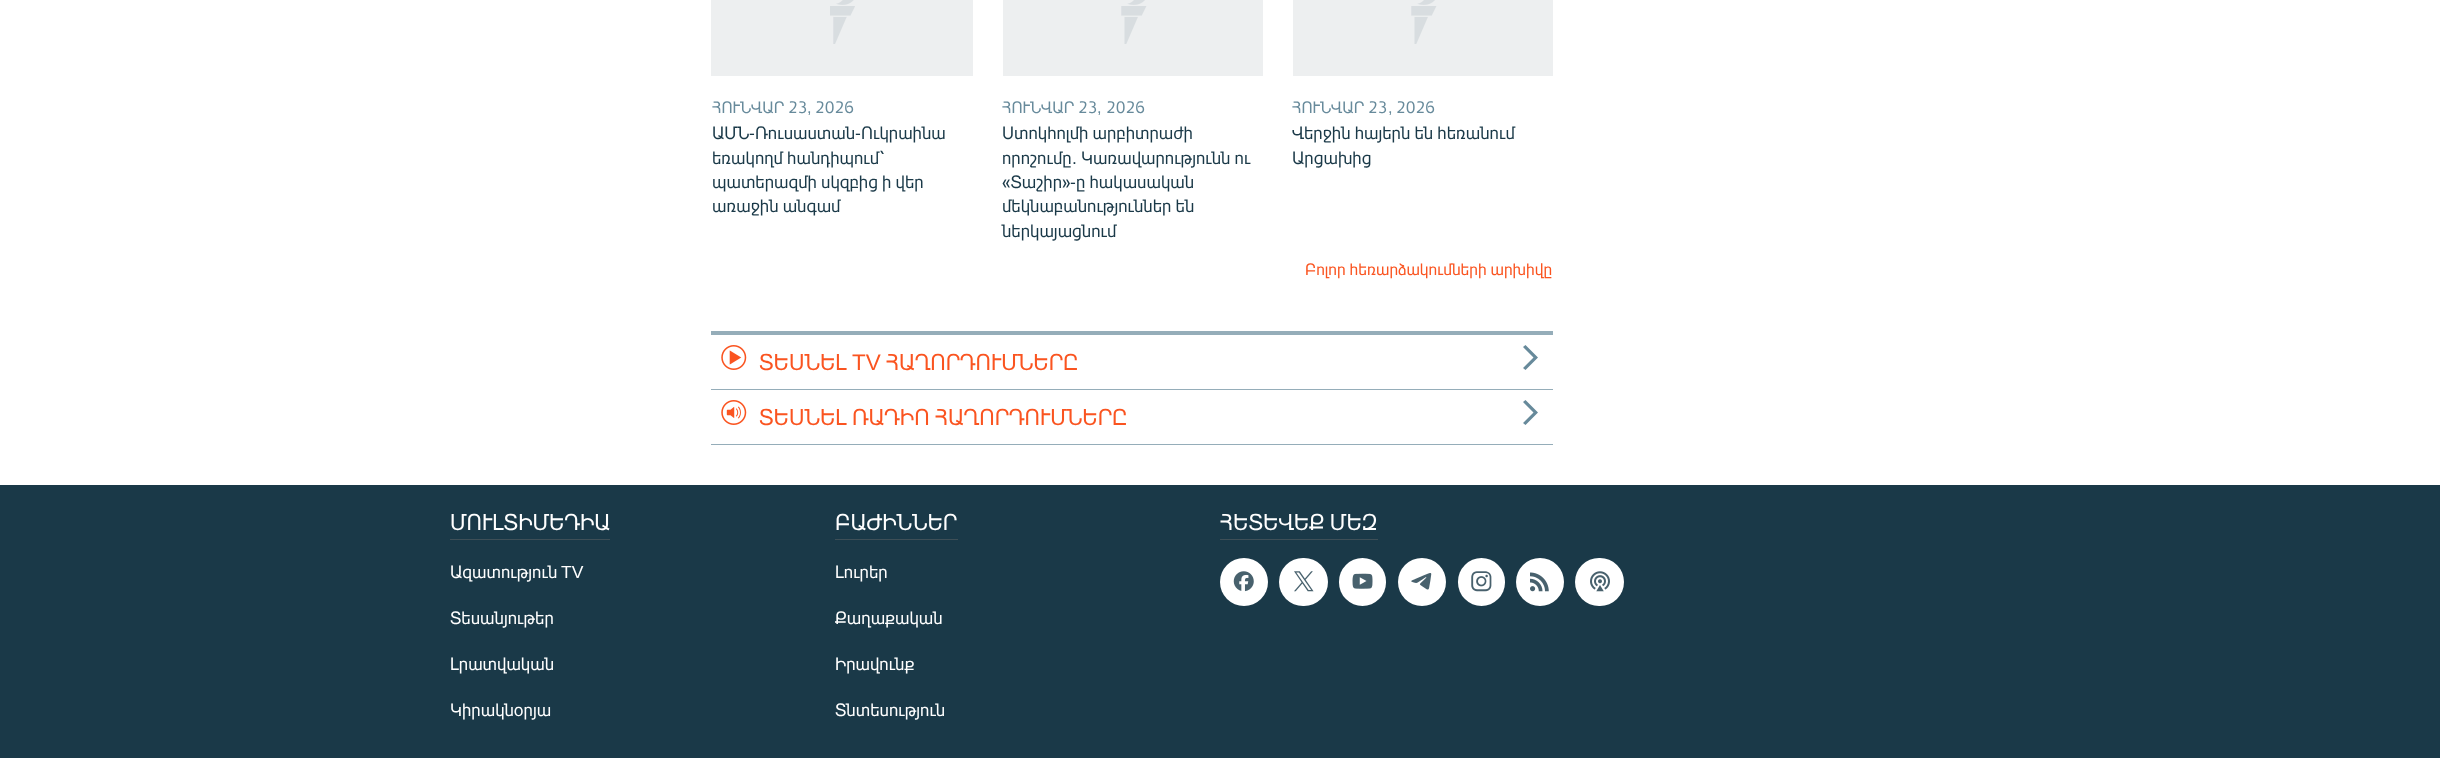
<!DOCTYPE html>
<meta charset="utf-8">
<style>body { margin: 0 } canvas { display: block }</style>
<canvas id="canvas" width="2440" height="758"></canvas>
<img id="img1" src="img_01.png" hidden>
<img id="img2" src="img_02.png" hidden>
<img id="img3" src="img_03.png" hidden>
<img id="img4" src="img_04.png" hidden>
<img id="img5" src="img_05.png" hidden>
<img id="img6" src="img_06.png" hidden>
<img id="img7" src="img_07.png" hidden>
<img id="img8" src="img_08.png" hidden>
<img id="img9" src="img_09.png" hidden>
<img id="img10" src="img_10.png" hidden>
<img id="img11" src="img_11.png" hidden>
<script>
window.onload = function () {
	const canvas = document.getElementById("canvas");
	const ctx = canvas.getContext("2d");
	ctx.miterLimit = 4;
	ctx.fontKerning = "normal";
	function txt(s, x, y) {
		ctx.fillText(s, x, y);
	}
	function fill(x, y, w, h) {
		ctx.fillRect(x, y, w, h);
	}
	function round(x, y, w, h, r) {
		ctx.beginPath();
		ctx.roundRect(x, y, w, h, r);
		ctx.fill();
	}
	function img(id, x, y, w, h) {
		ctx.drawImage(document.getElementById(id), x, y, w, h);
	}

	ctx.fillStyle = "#FFFFFF";
	fill(0, 0, 2440, 758);
	ctx.fillStyle = "#EDEFF0";
	fill(711, 0, 262, 76);
	img("img1", 830, 0, 25, 44);
	fill(1003, 0, 260, 76);
	img("img2", 1121, 0, 26, 44);
	fill(1293, 0, 260, 76);
	img("img2", 1411, 0, 26, 44);
	ctx.fillStyle = "#95ADB9";
	fill(711, 331, 842, 4);
	fill(711, 389, 842, 1);
	img("img3", 721, 345, 26, 25);
	ctx.fillStyle = "#678A9B";
	ctx.beginPath();
	ctx.moveTo(1525.5, 370);
	ctx.lineTo(1538, 357.5);
	ctx.lineTo(1525.5, 345);
	ctx.lineTo(1523, 347);
	ctx.lineTo(1533.5, 357.5);
	ctx.lineTo(1523, 368);
	ctx.closePath();
	ctx.fill();
	ctx.fillStyle = "#95ADB9";
	fill(711, 444, 842, 1);
	img("img4", 721, 400, 26, 25);
	ctx.fillStyle = "#678A9B";
	ctx.beginPath();
	ctx.moveTo(1525.5, 425);
	ctx.lineTo(1538, 412.5);
	ctx.lineTo(1525.5, 400);
	ctx.lineTo(1523, 402);
	ctx.lineTo(1533.5, 412.5);
	ctx.lineTo(1523, 423);
	ctx.closePath();
	ctx.fill();
	ctx.fillStyle = "#1A3948";
	fill(0, 485, 2440, 273);
	ctx.fillStyle = "#3E4F57";
	fill(450, 539, 160, 1);
	fill(835, 539, 123, 1);
	fill(1220, 539, 158, 1);
	ctx.fillStyle = "#FFFFFF";
	ctx.beginPath();
	ctx.arc(1244, 582, 24, 0, Math.PI * 2);
	ctx.fill();
	img("img5", 1233, 571, 21, 21);
	round(1279, 558, 49, 48, 24);
	img("img6", 1294, 571, 20, 21);
	round(1339, 558, 47, 48, 23.5);
	img("img7", 1352, 573, 21, 16);
	ctx.beginPath();
	ctx.arc(1422, 582, 24, 0, Math.PI * 2);
	ctx.fill();
	img("img8", 1411, 573, 21, 17);
	round(1458, 558, 47, 48, 23.5);
	img("img9", 1471, 571, 21, 21);
	ctx.beginPath();
	ctx.arc(1540, 582, 24, 0, Math.PI * 2);
	ctx.fill();
	img("img10", 1530, 572, 19, 20);
	round(1575, 558, 49, 48, 24);
	img("img11", 1590, 571, 20, 21);
	ctx.font = "16.25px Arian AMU";
	ctx.fillStyle = "#678A9B";
	txt("ՀՈՒՆՎԱՐ 23", 712, 113);
	ctx.font = "16.25px Liberation Sans";
	txt(",", 807, 113);
	ctx.font = "16.25px Arian AMU";
	txt("2026", 815, 113);
	ctx.font = "17.5px Arian AMU";
	ctx.fillStyle = "#1A3948";
	txt("ԱՄՆ", 712, 139);
	ctx.font = "17.5px Liberation Sans";
	txt("-", 749, 139);
	ctx.font = "17.5px Arian AMU";
	txt("Ռուսաստան", 755, 139);
	ctx.font = "17.5px Liberation Sans";
	txt("-", 855, 139);
	ctx.font = "17.5px Arian AMU";
	txt("Ուկրաինա", 861, 139);
	txt("եռակողմ հանդիպում՝", 712, 164);
	txt("պատերազմի սկզբից ի վեր", 712, 188);
	txt("առաջին անգամ", 712, 212);
	ctx.font = "16.25px Arian AMU";
	ctx.fillStyle = "#678A9B";
	txt("ՀՈՒՆՎԱՐ 23", 1002, 113);
	ctx.font = "16.25px Liberation Sans";
	txt(",", 1097, 113);
	ctx.font = "16.25px Arian AMU";
	txt("2026", 1106, 113);
	ctx.font = "17.5px Arian AMU";
	ctx.fillStyle = "#1A3948";
	txt("Ստոկհոլմի արբիտրաժի", 1002, 139);
	txt("որոշումը", 1002, 164);
	ctx.font = "17.5px Liberation Sans";
	txt(".", 1072, 164);
	ctx.font = "17.5px Arian AMU";
	txt("Կառավարությունն ու", 1081, 164);
	txt("«Տաշիր»", 1002, 188);
	ctx.font = "17.5px Liberation Sans";
	txt("-", 1070, 188);
	ctx.font = "17.5px Arian AMU";
	txt("ը հակասական", 1076, 188);
	txt("մեկնաբանություններ են", 1002, 212);
	txt("ներկայացնում", 1002, 237);
	ctx.font = "16.25px Arian AMU";
	ctx.fillStyle = "#678A9B";
	txt("ՀՈՒՆՎԱՐ 23", 1292, 113);
	ctx.font = "16.25px Liberation Sans";
	txt(",", 1388, 113);
	ctx.font = "16.25px Arian AMU";
	txt("2026", 1396, 113);
	ctx.font = "17.5px Arian AMU";
	ctx.fillStyle = "#1A3948";
	txt("Վերջին հայերն են հեռանում", 1292, 139);
	txt("Արցախից", 1292, 164);
	ctx.font = "16.25px Arian AMU";
	ctx.fillStyle = "#FA5420";
	txt("Բոլոր հեռարձակումների արխիվը", 1305, 275);
	ctx.font = "22.5px Arian AMU";
	txt("ՏԵՍՆԵԼ", 759, 370);
	ctx.font = "22.5px Liberation Sans";
	txt("TV", 852, 370);
	ctx.font = "22.5px Arian AMU";
	txt("ՀԱՂՈՐԴՈՒՄՆԵՐԸ", 886, 370);
	txt("ՏԵՍՆԵԼ ՌԱԴԻՈ ՀԱՂՈՐԴՈՒՄՆԵՐԸ", 759, 425);
	ctx.fillStyle = "#FFFFFF";
	txt("ՄՈՒԼՏԻՄԵԴԻԱ", 450, 530);
	ctx.font = "17.5px Arian AMU";
	txt("Ազատություն", 450, 578);
	ctx.font = "17.5px Liberation Sans";
	txt("TV", 561, 578);
	ctx.font = "17.5px Arian AMU";
	txt("Տեսանյութեր", 450, 624);
	txt("Լրատվական", 450, 670);
	txt("Կիրակնօրյա", 450, 716);
	ctx.font = "22.5px Arian AMU";
	txt("ԲԱԺԻՆՆԵՐ", 835, 530);
	ctx.font = "17.5px Arian AMU";
	txt("Լուրեր", 835, 578);
	txt("Քաղաքական", 835, 624);
	txt("Իրավունք", 835, 670);
	txt("Տնտեսություն", 835, 716);
	ctx.font = "22.5px Arian AMU";
	txt("ՀԵՏԵՎԵՔ ՄԵԶ", 1220, 530);
};
</script>
